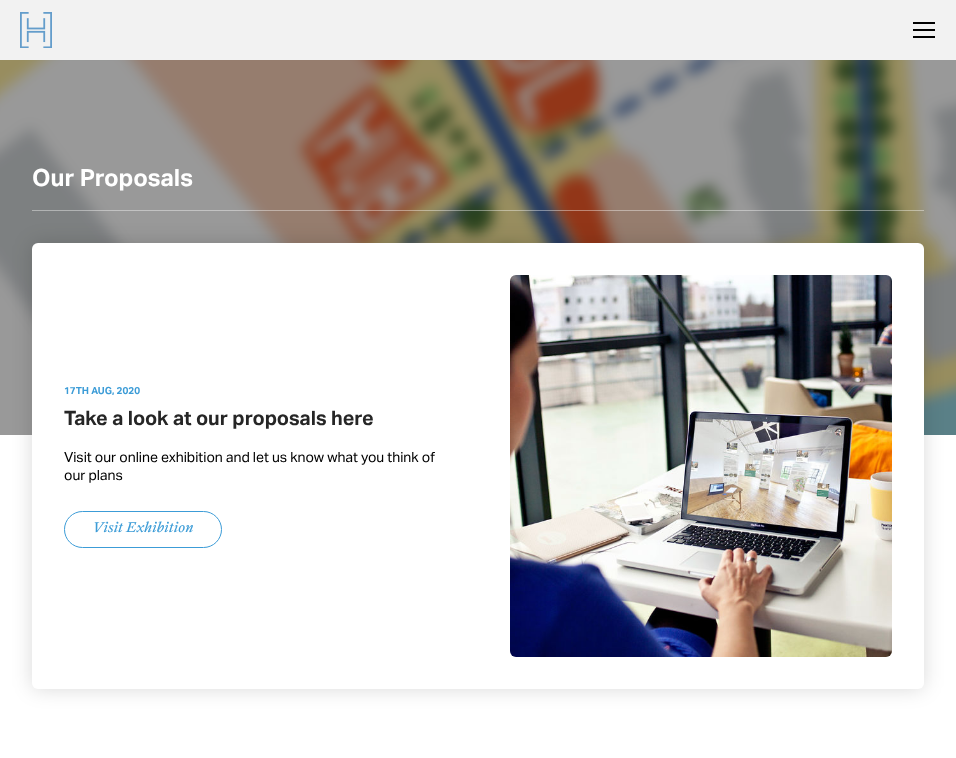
<!DOCTYPE html>
<meta charset="utf-8">
<style>body { margin: 0 } canvas { display: block }</style>
<canvas id="canvas" width="956" height="758"></canvas>
<img id="img1" src="img_01.png" hidden>
<img id="img2" src="img_02.png" hidden>
<img id="img3" src="img_03.png" hidden>
<script>
window.onload = function () {
	const canvas = document.getElementById("canvas");
	const ctx = canvas.getContext("2d");
	ctx.miterLimit = 4;
	ctx.fontKerning = "normal";
	function txt(s, x, y) {
		ctx.fillText(s, x, y);
	}
	function fill(x, y, w, h) {
		ctx.fillRect(x, y, w, h);
	}
	function round(x, y, w, h, r) {
		ctx.beginPath();
		ctx.roundRect(x, y, w, h, r);
		ctx.fill();
	}
	function img(id, x, y, w, h) {
		ctx.drawImage(document.getElementById(id), x, y, w, h);
	}

	ctx.fillStyle = "#FFFFFF";
	fill(0, 0, 956, 758);
	ctx.fillStyle = "#F2F2F2";
	fill(0, 0, 956, 60);
	img("img1", 20, 12, 32, 36);
	ctx.fillStyle = "#000000";
	fill(913, 36, 22, 2);
	fill(913, 29, 22, 2);
	fill(913, 22, 22, 2);
	fill(0, 60, 956, 375);
	img("img2", 0, 60, 956, 375);
	ctx.fillStyle = "rgba(255, 255, 255, 0.4)";
	fill(32, 210, 892, 1);
	ctx.fillStyle = "rgba(0, 0, 0, 0.15)";
	ctx.filter = "blur(10px)";
	ctx.beginPath();
	ctx.roundRect(32, 243, 892, 446, 6);
	ctx.fill();
	ctx.filter = "none";
	ctx.fillStyle = "#FFFFFF";
	round(32, 243, 892, 446, 6);
	ctx.beginPath();
	ctx.roundRect(64.5, 511.5, 157, 36, 18);
	ctx.strokeStyle = "#3C9CD7";
	ctx.stroke();
	img("img3", 510, 275, 382, 382);
	ctx.font = "bold 24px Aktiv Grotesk";
	txt("Our Proposals", 32, 186);
	ctx.font = "bold 10px Aktiv Grotesk";
	ctx.fillStyle = "#3C9CD7";
	txt("17TH AUG, 2020", 64, 394);
	ctx.font = "bold 20px Aktiv Grotesk";
	ctx.fillStyle = "#262626";
	txt("Take a look at our proposals here", 64, 425);
	ctx.font = "14px Aktiv Grotesk";
	ctx.fillStyle = "#000000";
	txt("Visit our online exhibition and let us know what you think of", 64, 462);
	txt("our plans", 64, 480);
	ctx.letterSpacing = "0.2px";
	ctx.font = "italic 14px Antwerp";
	ctx.fillStyle = "#3C9CD7";
	txt("Visit Exhibition", 93, 532);
};
</script>
